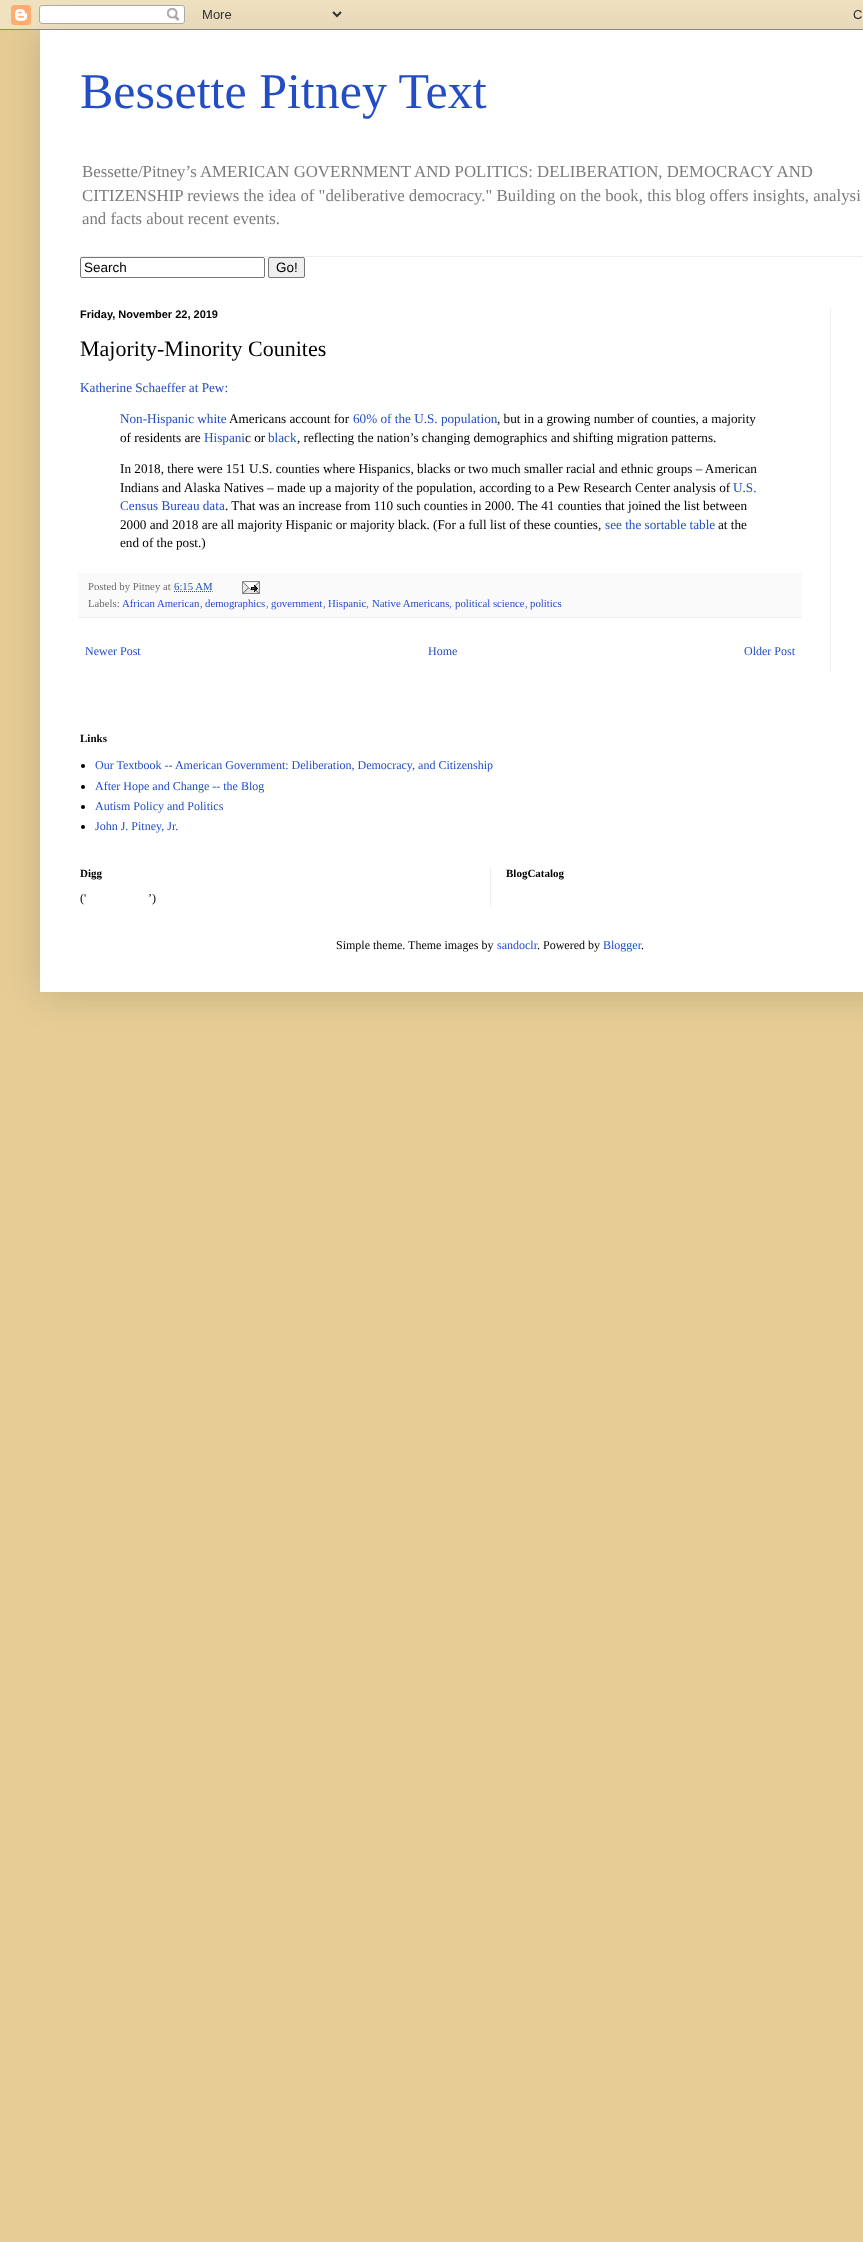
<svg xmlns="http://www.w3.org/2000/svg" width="863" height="2242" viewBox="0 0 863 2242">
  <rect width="100%" height="100%" fill="rgb(230,205,149)"/>
  <rect x="40" y="30" width="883" height="962" fill="rgba(0,0,0,0.15)" filter="blur(20px)"/>
  <image x="0" y="0" width="863" height="30" href="pic1.png"/>
  <rect x="40" y="30" width="823" height="962" fill="rgb(255,255,255)"/>
  <text x="80" y="108" font-family="Liberation Serif" font-size="50" fill="rgb(34,77,197)">Bessette Pitney Text</text>
  <g font-family="Liberation Serif" font-size="16.8" fill="rgb(124,124,124)">
    <text>
      <tspan x="82" y="177">Bessette/Pitney’s AMERICAN GOVERNMENT AND POLITICS: DELIBERATION, DEMOCRACY AND</tspan>
      <tspan x="82" y="201">CITIZENSHIP reviews the idea of "deliberative democracy." Building on the book, this blog offers insights, analysi</tspan>
      <tspan x="82" y="224">and facts about recent events.</tspan>
    </text>
  </g>
  <rect x="80" y="256" width="783" height="1" fill="rgb(239,239,239)"/>
  <rect x="80.5" y="257.5" width="184" height="20" rx="1.5" fill="none" stroke="rgb(118,118,118)"/>
  <text x="84" y="272" font-family="Liberation Sans" font-size="13.5" fill="rgb(0,0,0)">Search</text>
  <rect x="268.5" y="257.5" width="36" height="20" rx="1.5" fill="rgb(239,239,239)" stroke="rgb(118,118,118)"/>
  <text x="276" y="272" font-family="Liberation Sans" font-size="13.5" fill="rgb(0,0,0)">Go!</text>
  <text x="80" y="318" font-family="Liberation Sans" font-size="11" font-weight="bold" fill="rgb(0,0,0)">Friday, November 22, 2019</text>
  <text x="80" y="356" font-family="Liberation Serif" font-size="22" fill="rgb(0,0,0)">Majority-Minority Counites</text>
  <g font-family="Liberation Serif" font-size="13.2" fill="rgb(34,77,197)">
    <text x="80" y="392">Katherine Schaeffer at Pew:</text>
    <text x="120" y="423">Non-Hispanic white</text>
  </g>
  <text x="229" y="423" font-family="Liberation Serif" font-size="13.2" fill="rgb(0,0,0)">Americans account for</text>
  <text x="353" y="423" font-family="Liberation Serif" font-size="13.2" fill="rgb(34,77,197)">60% of the U.S. population</text>
  <g font-family="Liberation Serif" font-size="13.2" fill="rgb(0,0,0)">
    <text x="497" y="423">, but in a growing number of counties, a majority</text>
    <text x="120" y="442">of residents are</text>
  </g>
  <text x="204" y="442" font-family="Liberation Serif" font-size="13.2" fill="rgb(34,77,197)">Hispani</text>
  <text x="245" y="442" font-family="Liberation Serif" font-size="13.2" fill="rgb(0,0,0)">c or</text>
  <text x="268" y="442" font-family="Liberation Serif" font-size="13.2" fill="rgb(34,77,197)">black</text>
  <g font-family="Liberation Serif" font-size="13.2" fill="rgb(0,0,0)">
    <text x="297" y="442">, reflecting the nation’s changing demographics and shifting migration patterns.</text>
    <text>
      <tspan x="120" y="473">In 2018, there were 151 U.S. counties where Hispanics, blacks or two much smaller racial and ethnic groups – American</tspan>
      <tspan x="120" y="492">Indians and Alaska Natives – made up a majority of the population, according to a Pew Research Center analysis of</tspan>
    </text>
  </g>
  <g font-family="Liberation Serif" font-size="13.2" fill="rgb(34,77,197)">
    <text x="733" y="492">U.S.</text>
    <text x="120" y="510">Census Bureau data</text>
  </g>
  <g font-family="Liberation Serif" font-size="13.2" fill="rgb(0,0,0)">
    <text x="225" y="510">. That was an increase from 110 such counties in 2000. The 41 counties that joined the list between</text>
    <text x="120" y="529">2000 and 2018 are all majority Hispanic or majority black. (For a full list of these counties,</text>
  </g>
  <text x="605" y="529" font-family="Liberation Serif" font-size="13.2" fill="rgb(34,77,197)">see the sortable table</text>
  <g font-family="Liberation Serif" font-size="13.2" fill="rgb(0,0,0)">
    <text x="718" y="529">at the</text>
    <text x="120" y="547">end of the post.)</text>
  </g>
  <rect x="78" y="573" width="724" height="44" fill="rgb(250,250,250)"/>
  <rect x="78" y="617" width="724" height="1" fill="rgb(239,239,239)"/>
  <text x="88" y="590" font-family="Liberation Serif" font-size="10.75" fill="rgb(108,108,108)">Posted by Pitney at</text>
  <text x="174" y="590" font-family="Liberation Serif" font-size="10.75" fill="rgb(34,77,197)">6:15 AM</text>
  <path d="M174 591.5H212.5" fill="none" stroke="rgb(34,77,197)" stroke-dasharray="1 1"/>
  <image x="242" y="581" width="18" height="13" href="pic2.png"/>
  <text x="88" y="607" font-family="Liberation Serif" font-size="10.75" fill="rgb(108,108,108)">Labels:</text>
  <text x="122" y="607" font-family="Liberation Serif" font-size="10.75" fill="rgb(34,77,197)">African American</text>
  <text x="200" y="607" font-family="Liberation Serif" font-size="10.75" fill="rgb(108,108,108)">,</text>
  <text x="205" y="607" font-family="Liberation Serif" font-size="10.75" fill="rgb(34,77,197)">demographics</text>
  <text x="266" y="607" font-family="Liberation Serif" font-size="10.75" fill="rgb(108,108,108)">,</text>
  <text x="271" y="607" font-family="Liberation Serif" font-size="10.75" fill="rgb(34,77,197)">government</text>
  <text x="323" y="607" font-family="Liberation Serif" font-size="10.75" fill="rgb(108,108,108)">,</text>
  <text x="328" y="607" font-family="Liberation Serif" font-size="10.75" fill="rgb(34,77,197)">Hispanic</text>
  <text x="366" y="607" font-family="Liberation Serif" font-size="10.75" fill="rgb(108,108,108)">,</text>
  <text x="372" y="607" font-family="Liberation Serif" font-size="10.75" fill="rgb(34,77,197)">Native Americans</text>
  <text x="449" y="607" font-family="Liberation Serif" font-size="10.75" fill="rgb(108,108,108)">,</text>
  <text x="455" y="607" font-family="Liberation Serif" font-size="10.75" fill="rgb(34,77,197)">political science</text>
  <text x="525" y="607" font-family="Liberation Serif" font-size="10.75" fill="rgb(108,108,108)">,</text>
  <text x="530" y="607" font-family="Liberation Serif" font-size="10.75" fill="rgb(34,77,197)">politics</text>
  <g font-family="Liberation Serif" font-size="12" fill="rgb(34,77,197)">
    <text x="85" y="655">Newer Post</text>
    <text x="428" y="655">Home</text>
    <text x="744" y="655">Older Post</text>
  </g>
  <rect x="830" y="308" width="1" height="364" fill="rgb(239,239,239)"/>
  <text x="80" y="742" font-family="Liberation Serif" font-size="11" font-weight="bold" fill="rgb(0,0,0)">Links</text>
  <circle cx="83" cy="766" r="2" fill="rgb(0,0,0)"/>
  <text x="95" y="769" font-family="Liberation Serif" font-size="12" fill="rgb(34,77,197)">Our Textbook -- American Government: Deliberation, Democracy, and Citizenship</text>
  <circle cx="83" cy="787" r="2" fill="rgb(0,0,0)"/>
  <text x="95" y="790" font-family="Liberation Serif" font-size="12" fill="rgb(34,77,197)">After Hope and Change -- the Blog</text>
  <circle cx="83" cy="807" r="2" fill="rgb(0,0,0)"/>
  <text x="95" y="810" font-family="Liberation Serif" font-size="12" fill="rgb(34,77,197)">Autism Policy and Politics</text>
  <circle cx="83" cy="827" r="2" fill="rgb(0,0,0)"/>
  <text x="95" y="830" font-family="Liberation Serif" font-size="12" fill="rgb(34,77,197)">John J. Pitney, Jr.</text>
  <text x="80" y="877" font-family="Liberation Serif" font-size="11" font-weight="bold" fill="rgb(0,0,0)">Digg</text>
  <g font-family="Liberation Serif" font-size="12" fill="rgb(0,0,0)">
    <text x="80" y="902">('</text>
    <text x="148" y="902">’)</text>
  </g>
  <rect x="490" y="867" width="1" height="40" fill="rgb(239,239,239)"/>
  <text x="506" y="877" font-family="Liberation Serif" font-size="11" font-weight="bold" fill="rgb(0,0,0)">BlogCatalog</text>
  <text x="336" y="949" font-family="Liberation Serif" font-size="12" fill="rgb(0,0,0)">Simple theme. Theme images by</text>
  <text x="497" y="949" font-family="Liberation Serif" font-size="12" fill="rgb(34,77,197)">sandoclr</text>
  <text x="537" y="949" font-family="Liberation Serif" font-size="12" fill="rgb(0,0,0)">. Powered by</text>
  <text x="603" y="949" font-family="Liberation Serif" font-size="12" fill="rgb(34,77,197)">Blogger</text>
  <text x="641" y="949" font-family="Liberation Serif" font-size="12" fill="rgb(0,0,0)">.</text>
</svg>
